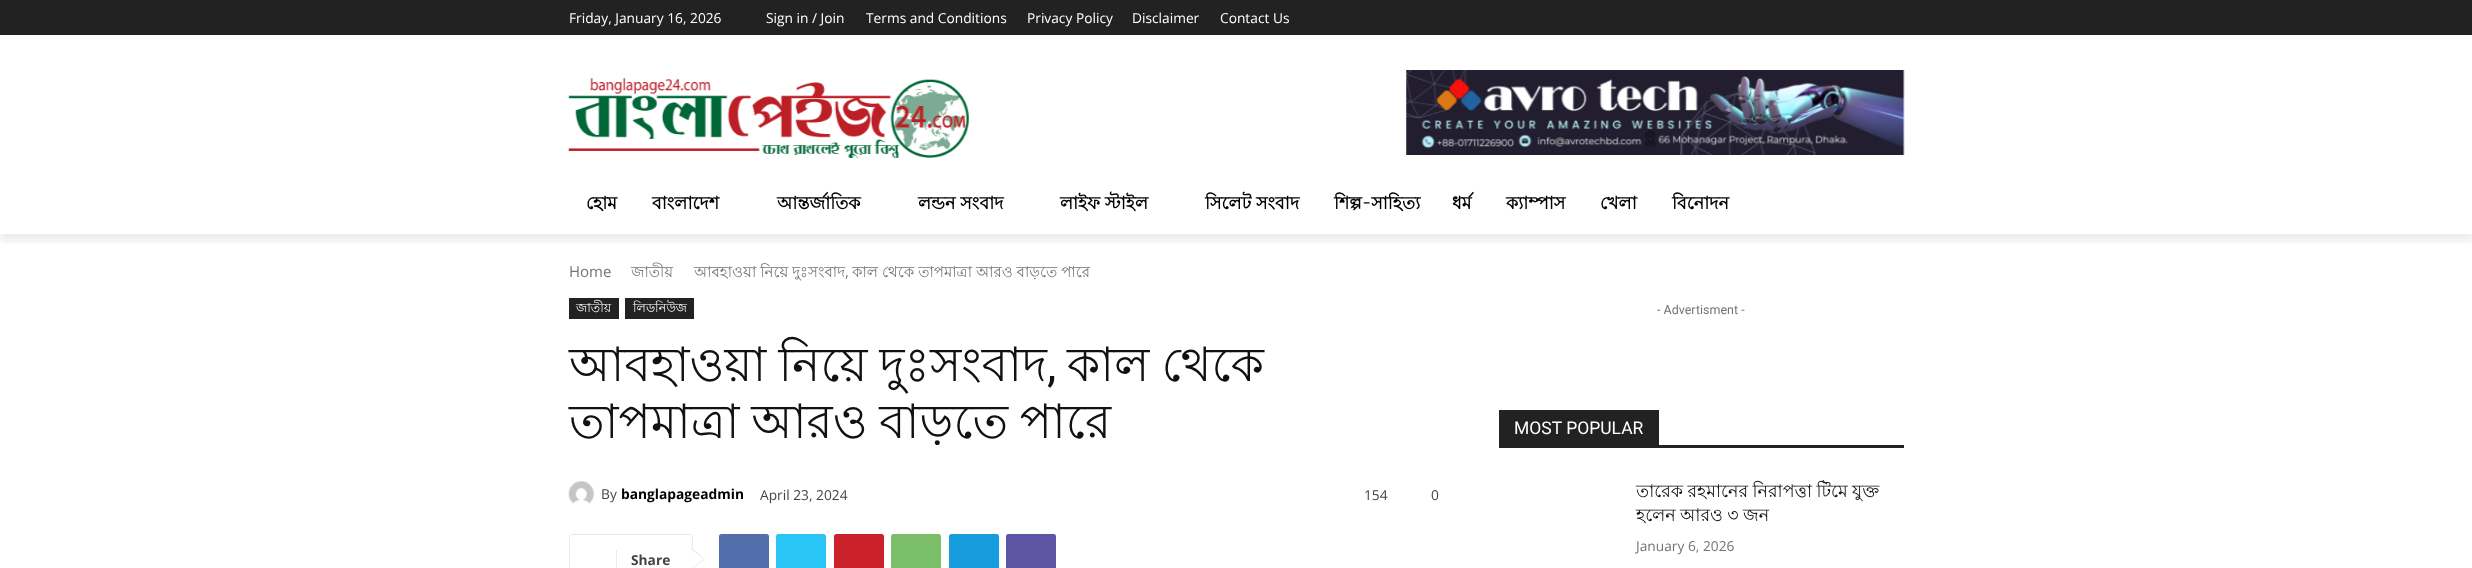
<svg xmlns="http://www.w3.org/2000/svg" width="2472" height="568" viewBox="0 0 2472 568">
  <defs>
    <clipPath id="clip1"><rect x="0" y="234" width="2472" height="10"/></clipPath>
  </defs>
  <rect width="100%" height="100%" fill="rgb(255,255,255)"/>
  <rect x="0" y="0" width="2472" height="35" fill="rgb(34,34,34)"/>
  <image x="568" y="78" width="401" height="81" href="pic1.png"/>
  <image x="1406" y="70" width="499" height="85" href="pic2.png"/>
  <g clip-path="url(#clip1)">
    <rect x="0" y="8" width="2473" height="233" fill="rgba(0,0,0,0.08)" filter="blur(5px)"/>
  </g>
  <g font-family="Open Sans" font-size="13.75" fill="rgb(255,255,255)">
    <text x="569" y="23">Friday, January 16, 2026</text>
    <text x="766" y="23">Sign in / Join</text>
    <text x="866" y="23">Terms and Conditions</text>
    <text x="1027" y="23">Privacy Policy</text>
    <text x="1132" y="23">Disclaimer</text>
    <text x="1220" y="23">Contact Us</text>
  </g>
  <g font-family="Lohit Bengali" font-size="17.5" font-weight="bold" fill="rgb(0,0,0)">
    <text x="586" y="209">হোম</text>
    <text x="652" y="209">বাংলাদেশ</text>
    <text x="777" y="209">আন্তর্জাতিক</text>
    <text x="918" y="209">লন্ডন সংবাদ</text>
    <text x="1060" y="209">লাইফ স্টাইল</text>
    <text x="1205" y="209">সিলেট সংবাদ</text>
    <text x="1334" y="209">শিল্প-সাহিত্য</text>
    <text x="1452" y="209">ধর্ম</text>
    <text x="1506" y="209">ক্যাম্পাস</text>
    <text x="1600" y="209">খেলা</text>
    <text x="1672" y="209">বিনোদন</text>
  </g>
  <text x="569" y="277" font-family="Open Sans" font-size="15" fill="rgb(116,116,116)">Home</text>
  <g font-family="Lohit Bengali" font-size="15" fill="rgb(116,116,116)">
    <text x="631" y="277">জাতীয়</text>
    <text x="694" y="277" word-spacing="-0.25">আবহাওয়া নিয়ে দুঃসংবাদ</text>
  </g>
  <text x="845" y="277" font-family="Open Sans" font-size="15" fill="rgb(116,116,116)">,</text>
  <text x="852" y="277" word-spacing="-0.25" font-family="Lohit Bengali" font-size="15" fill="rgb(116,116,116)">কাল থেকে তাপমাত্রা আরও বাড়তে পারে</text>
  <rect x="569" y="298" width="50" height="21" fill="rgb(34,34,34)"/>
  <text x="576" y="312" font-family="Lohit Bengali" font-size="12.5" fill="rgb(255,255,255)">জাতীয়</text>
  <rect x="625" y="298" width="69" height="21" fill="rgb(34,34,34)"/>
  <text x="633" y="312" font-family="Lohit Bengali" font-size="12.5" fill="rgb(255,255,255)">লিডনিউজ</text>
  <text x="569" y="381" word-spacing="-1" font-family="Lohit Bengali" font-size="47.5" fill="rgb(17,17,17)">আবহাওয়া নিয়ে দুঃসংবাদ</text>
  <text x="1047" y="381" font-family="Roboto" font-size="47.5" fill="rgb(17,17,17)">,</text>
  <g font-family="Lohit Bengali" font-size="47.5" fill="rgb(17,17,17)">
    <text x="1067" y="381" word-spacing="-1">কাল থেকে</text>
    <text x="569" y="438" word-spacing="-1.5">তাপমাত্রা আরও বাড়তে পারে</text>
  </g>
  <image x="568" y="481" width="26" height="23" href="pic3.png"/>
  <text x="601" y="499" font-family="Open Sans" font-size="13.75" fill="rgb(68,68,68)">By</text>
  <text x="621" y="499" font-family="Open Sans" font-size="13.75" font-weight="bold" fill="rgb(0,0,0)">banglapageadmin</text>
  <g font-family="Open Sans" font-size="13.75" fill="rgb(68,68,68)">
    <text x="760" y="500">April 23, 2024</text>
    <text x="1364" y="500">154</text>
    <text x="1431" y="500">0</text>
  </g>
  <rect x="569.5" y="534.5" width="123" height="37" rx="2" fill="none" stroke="rgb(233,233,233)"/>
  <path d="M691 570V547.5L705 559Z" fill="rgb(233,233,233)"/>
  <rect x="616" y="550" width="1" height="18" fill="rgb(235,235,235)"/>
  <text x="631" y="565" font-family="Open Sans" font-size="13.75" font-weight="bold" fill="rgb(68,68,68)">Share</text>
  <path d="M691 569V549L704 559Z" fill="rgb(255,255,255)"/>
  <rect x="719" y="534" width="50" height="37" rx="2.5" fill="rgb(81,110,171)"/>
  <rect x="776" y="534" width="50" height="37" rx="2.5" fill="rgb(41,197,246)"/>
  <rect x="834" y="534" width="50" height="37" rx="2.5" fill="rgb(202,33,42)"/>
  <rect x="891" y="534" width="50" height="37" rx="2.5" fill="rgb(123,191,106)"/>
  <rect x="949" y="534" width="50" height="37" rx="2.5" fill="rgb(23,156,222)"/>
  <rect x="1006" y="534" width="50" height="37" rx="2.5" fill="rgb(93,84,164)"/>
  <text x="1657" y="314" font-family="Roboto" font-size="12.5" fill="rgb(116,116,116)">- Advertisment -</text>
  <rect x="1499" y="445" width="405" height="3" fill="rgb(34,34,34)"/>
  <rect x="1499" y="410" width="160" height="35" fill="rgb(34,34,34)"/>
  <text x="1514" y="434" font-family="Roboto" font-size="17.5" fill="rgb(255,255,255)">MOST POPULAR</text>
  <g font-family="Lohit Bengali" font-size="17.5" fill="rgb(17,17,17)">
    <text>
      <tspan x="1636" y="497" word-spacing="-0.5">তারেক রহমানের নিরাপত্তা টিমে যুক্ত</tspan>
      <tspan x="1636" y="521" word-spacing="-0.5">হলেন আরও ৩ জন</tspan>
    </text>
  </g>
  <text x="1636" y="551" font-family="Open Sans" font-size="13.75" fill="rgb(116,116,116)">January 6, 2026</text>
</svg>
